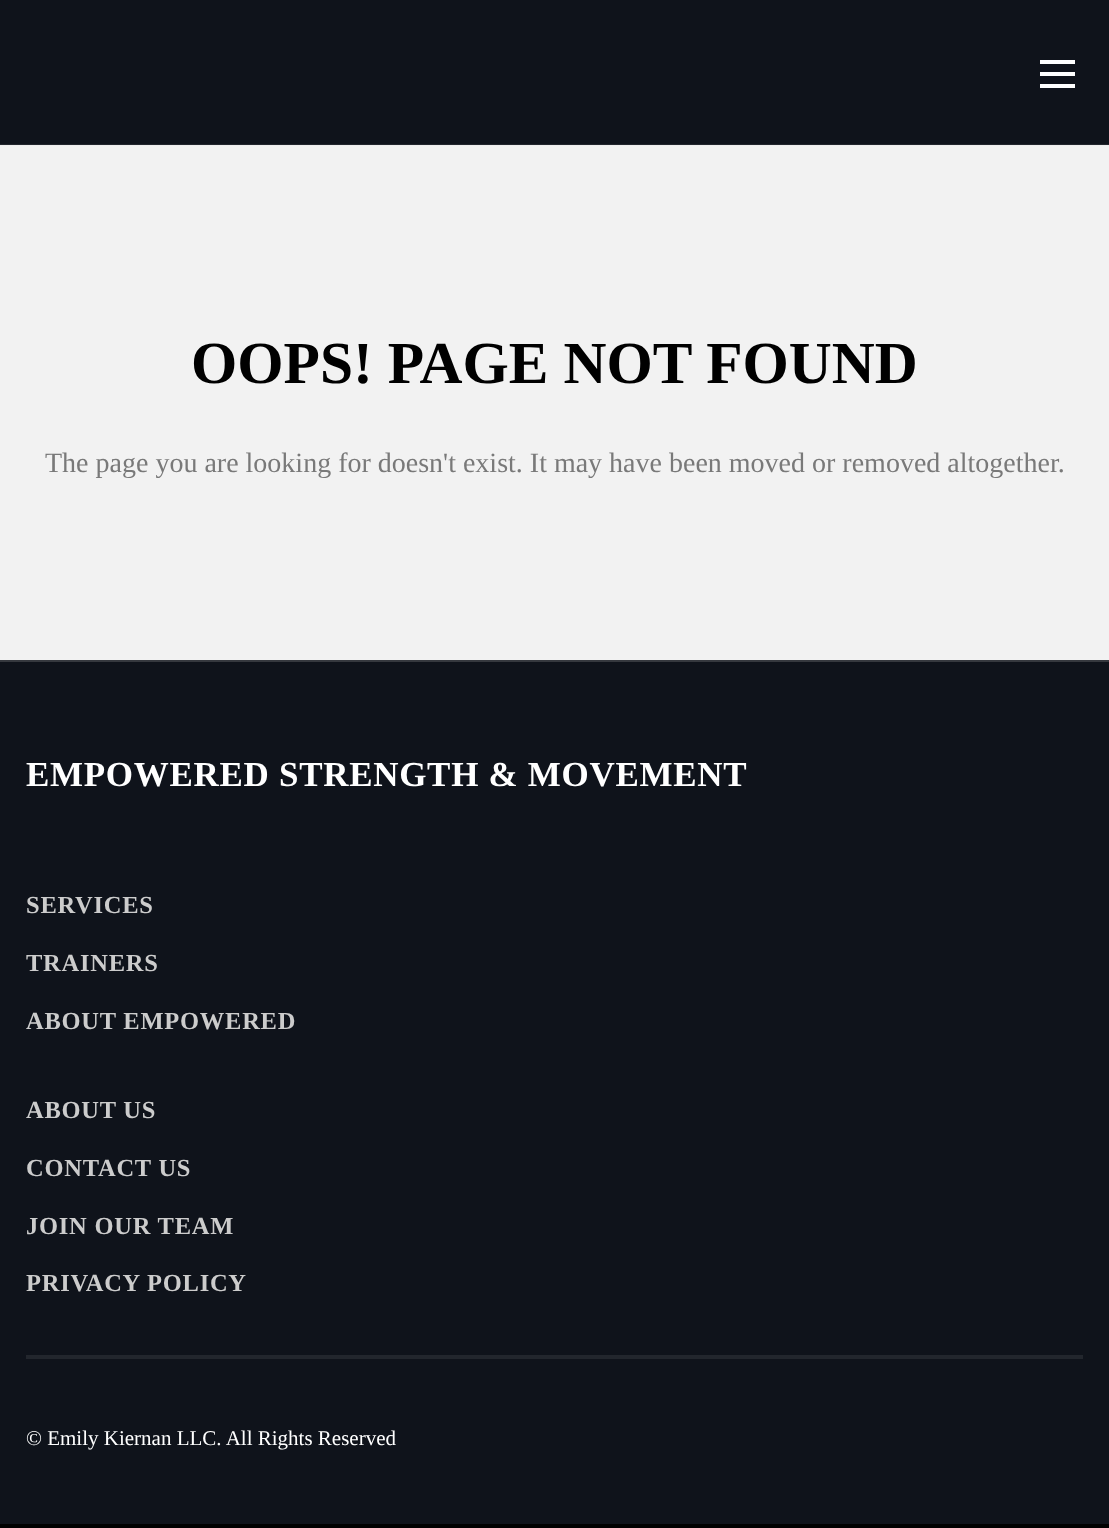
<svg xmlns="http://www.w3.org/2000/svg" width="1109" height="1528" viewBox="0 0 1109 1528">
  <rect width="100%" height="100%" fill="rgb(0,0,0)"/>
  <rect x="0" y="146" width="1109" height="514" fill="rgb(242,242,242)"/>
  <rect x="0" y="145" width="1109" height="1" fill="rgb(238,238,238)"/>
  <rect x="0" y="0" width="1109" height="144" fill="rgb(15,19,27)"/>
  <rect x="0" y="144" width="1109" height="1" fill="rgb(34,38,45)"/>
  <rect x="1040" y="84" width="35" height="4" fill="rgb(255,255,255)"/>
  <rect x="1040" y="60" width="35" height="4" fill="rgb(255,255,255)"/>
  <rect x="1040" y="72" width="35" height="4" fill="rgb(255,255,255)"/>
  <text x="191" y="383" font-family="Liberation Serif" font-size="59.5" font-weight="bold" fill="rgb(0,0,0)">OOPS! PAGE NOT FOUND</text>
  <text x="45" y="472" font-family="Liberation Serif" font-size="28" fill="rgb(121,121,121)">The page you are looking for doesn't exist. It may have been moved or removed altogether.</text>
  <rect x="0" y="662" width="1109" height="862" fill="rgb(15,19,27)"/>
  <rect x="0" y="660" width="1109" height="2" fill="rgb(53,56,62)"/>
  <text x="26" y="786" font-family="Liberation Serif" font-size="35" font-weight="bold" letter-spacing="0.7" fill="rgb(255,255,255)">EMPOWERED STRENGTH &amp; MOVEMENT</text>
  <g font-family="Liberation Serif" font-size="24.5" font-weight="bold" letter-spacing="0.75" fill="rgb(204,204,204)">
    <text x="26" y="913">SERVICES</text>
    <text x="26" y="971">TRAINERS</text>
    <text x="26" y="1029">ABOUT EMPOWERED</text>
    <text x="26" y="1118">ABOUT US</text>
    <text x="26" y="1176">CONTACT US</text>
    <text x="26" y="1234">JOIN OUR TEAM</text>
    <text x="26" y="1291">PRIVACY POLICY</text>
  </g>
  <rect x="26" y="1355" width="1057" height="4" fill="rgb(34,38,45)"/>
  <text x="26" y="1445" font-family="Liberation Serif" font-size="21" fill="rgb(255,255,255)">© Emily Kiernan LLC. All Rights Reserved</text>
</svg>
